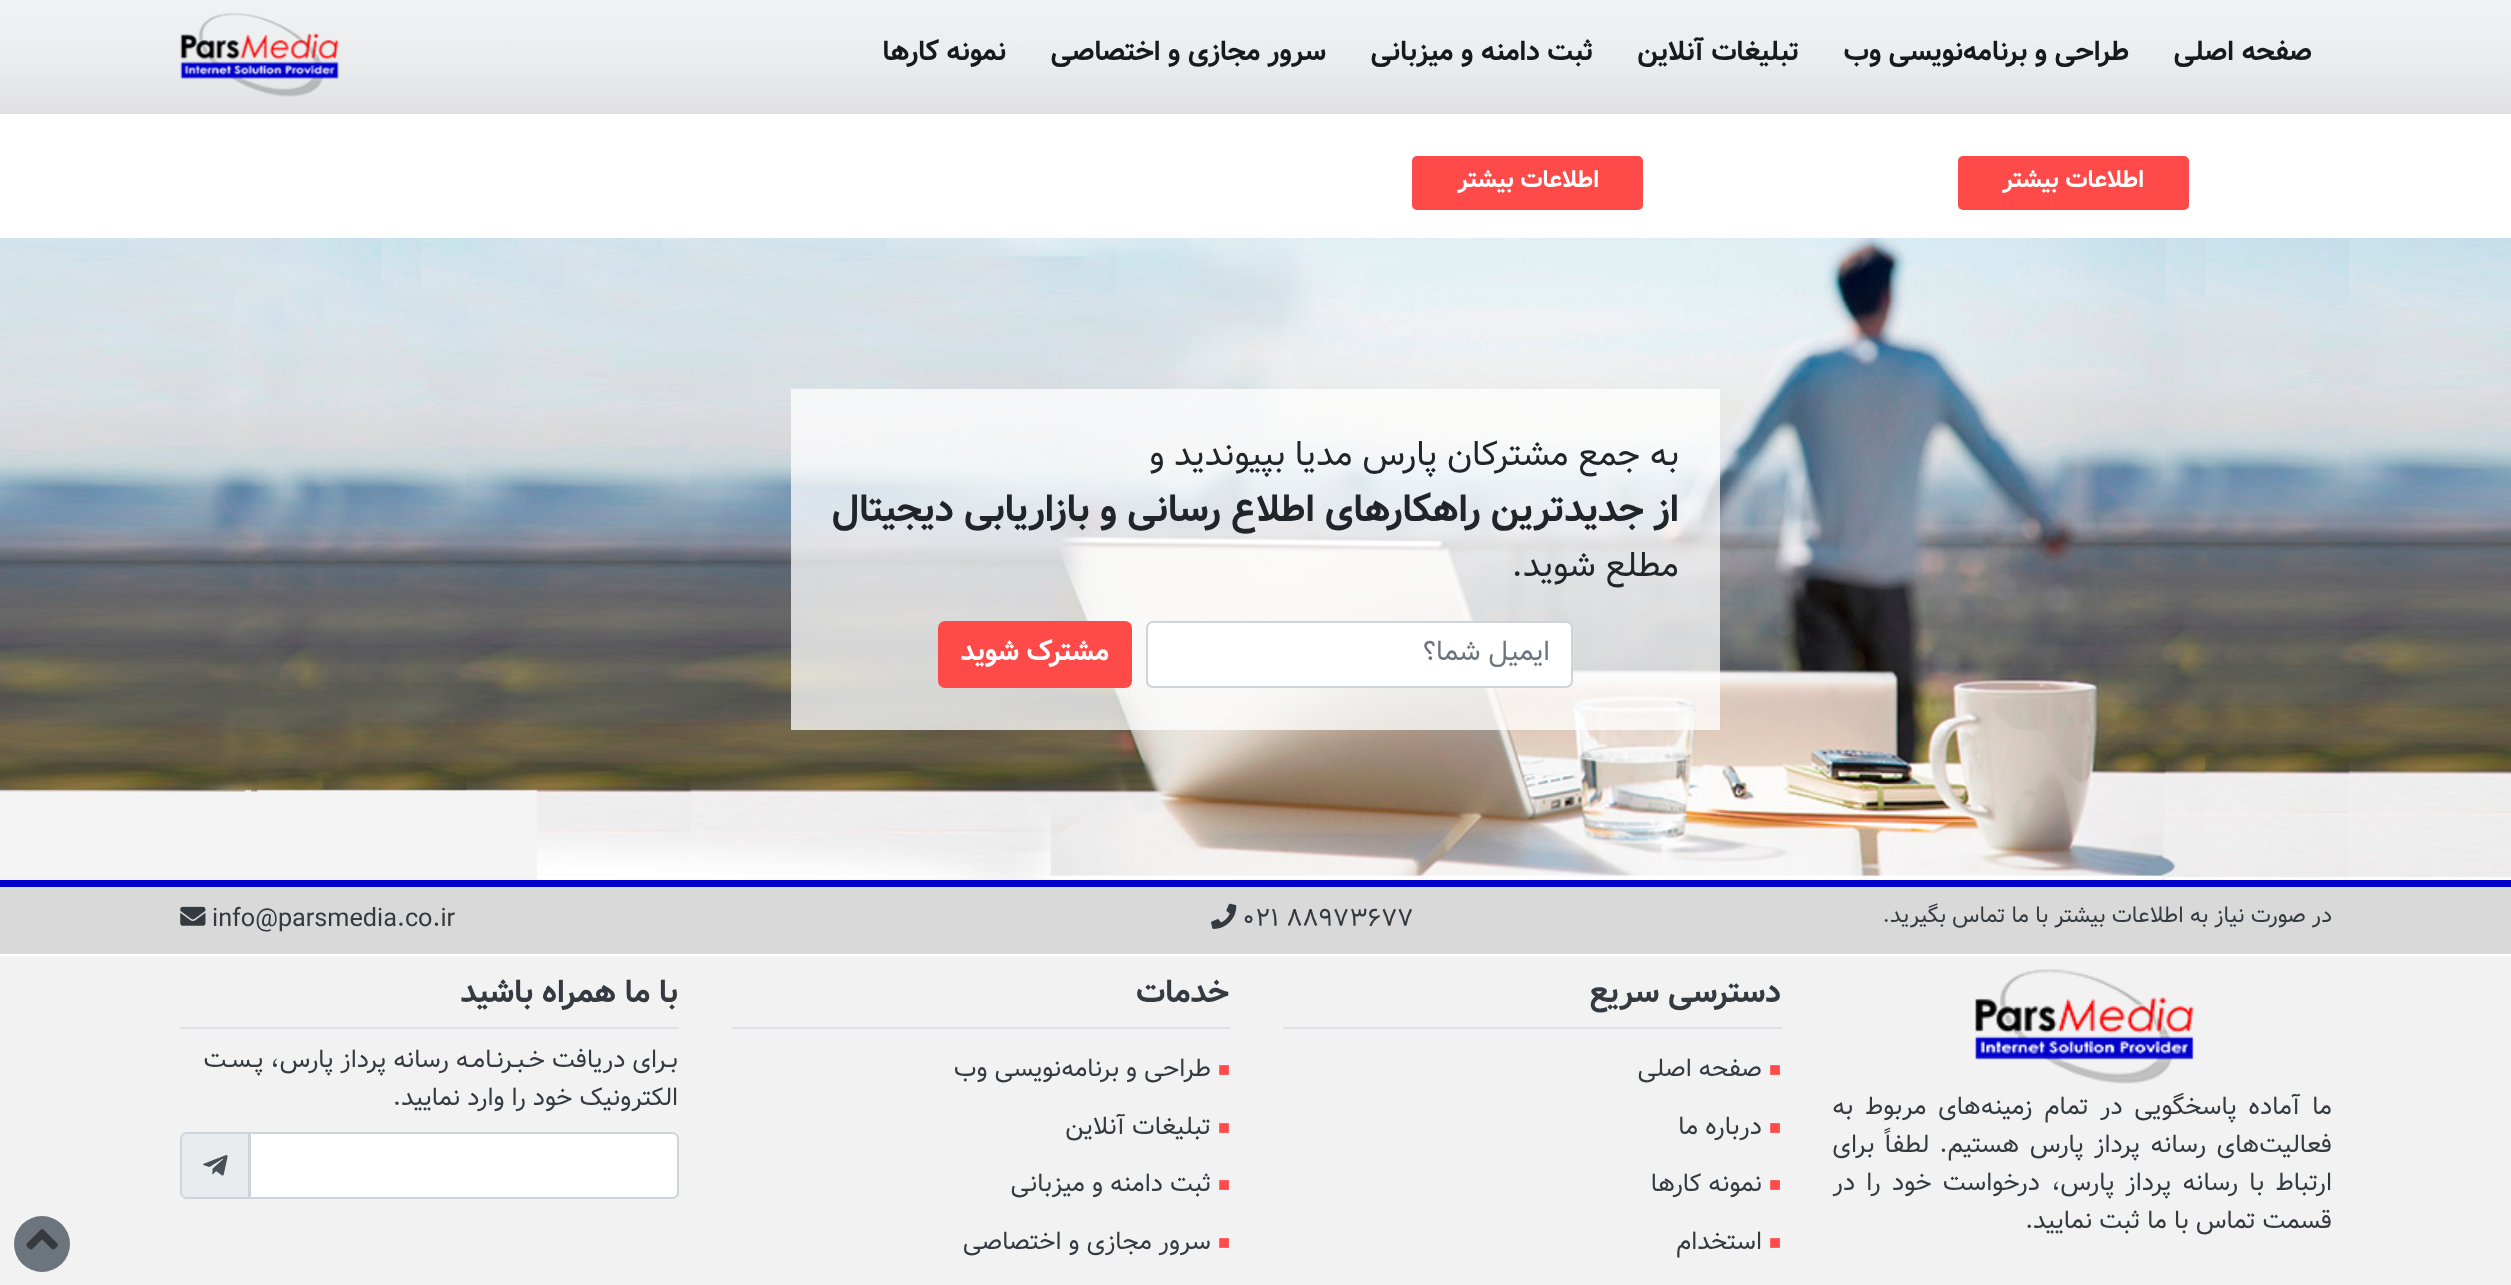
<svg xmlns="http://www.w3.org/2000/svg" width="2511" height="1285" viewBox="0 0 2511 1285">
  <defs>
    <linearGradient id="g1" gradientUnits="userSpaceOnUse" x1="1256" y1="0" x2="1256" y2="114"><stop offset="0" stop-color="rgb(241,242,244)"/><stop offset="0.54" stop-color="rgb(235,236,238)"/><stop offset="1" stop-color="rgb(224,224,226)"/></linearGradient>
  </defs>
  <rect width="100%" height="100%" fill="rgb(255,255,255)"/>
  <rect x="0" y="0" width="2511" height="114" fill="url(#g1)"/>
  <g font-family="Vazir" font-size="28" font-weight="bold" direction="rtl" fill="rgb(25,25,25)">
    <text x="2312" y="60">صفحه اصلی</text>
    <text x="2129" y="60">طراحی و برنامه‌نویسی وب</text>
    <text x="1799" y="60">تبلیغات آنلاین</text>
    <text x="1593" y="60">ثبت دامنه و میزبانی</text>
    <text x="1326" y="60">سرور مجازی و اختصاصی</text>
    <text x="1006" y="60">نمونه کارها</text>
  </g>
  <image x="180" y="13" width="159" height="84" href="pic1.png"/>
  <rect x="1958" y="156" width="231" height="54" rx="5" fill="rgb(255,74,74)"/>
  <text x="2144" y="187" font-family="Vazir" font-size="24.5" font-weight="bold" direction="rtl" fill="rgb(255,255,255)">اطلاعات بیشتر</text>
  <rect x="1412" y="156" width="231" height="54" rx="5" fill="rgb(255,74,74)"/>
  <text x="1599" y="187" font-family="Vazir" font-size="24.5" font-weight="bold" direction="rtl" fill="rgb(255,255,255)">اطلاعات بیشتر</text>
  <image x="0" y="238" width="2511" height="642" href="pic2.png"/>
  <rect x="791" y="389" width="929" height="341" fill="rgba(255,255,255,0.75)"/>
  <text x="1679" y="465" font-family="Vazir" font-size="35" direction="rtl" fill="rgb(33,37,41)">به جمع مشترکان پارس مدیا بپیوندید و</text>
  <text x="1679" y="521" font-family="Vazir" font-size="38.5" font-weight="bold" direction="rtl" fill="rgb(33,37,41)">از جدیدترین راهکارهای اطلاع رسانی و بازاریابی دیجیتال</text>
  <text x="1679" y="576" font-family="Vazir" font-size="35" direction="rtl" fill="rgb(33,37,41)">مطلع شوید.</text>
  <rect x="1147" y="622" width="425" height="65" rx="6" fill="rgb(255,255,255)" stroke="rgb(206,212,218)" stroke-width="2"/>
  <text x="1550" y="660" font-family="Vazir" font-size="28" direction="rtl" fill="rgb(108,117,125)">ایمیل شما؟</text>
  <rect x="938" y="621" width="194" height="67" rx="7" fill="rgb(255,74,74)"/>
  <text x="1109" y="660" font-family="Vazir" font-size="28" font-weight="bold" direction="rtl" fill="rgb(255,255,255)">مشترک شوید</text>
  <rect x="0" y="880" width="2511" height="7" fill="rgb(0,0,200)"/>
  <rect x="0" y="887" width="2511" height="67" fill="rgb(217,217,217)"/>
  <text x="2332" y="922" font-family="Vazir" font-size="22.4" direction="rtl" fill="rgb(52,58,64)">در صورت نیاز به اطلاعات بیشتر با ما تماس بگیرید.</text>
  <text x="1242" y="926" font-family="Vazir" font-size="25.25" fill="rgb(52,58,64)">۰۲۱ ۸۸۹۷۳۶۷۷</text>
  <image x="1211" y="903" width="26" height="26" href="pic3.png"/>
  <text x="212" y="926" font-family="Vazir" font-size="25.25" fill="rgb(52,58,64)">info@parsmedia.co.ir</text>
  <image x="180" y="906" width="26" height="20" href="pic4.png"/>
  <rect x="0" y="956" width="2511" height="329" fill="rgb(242,242,242)"/>
  <image x="1975" y="969" width="219" height="115" href="pic5.png"/>
  <g font-family="Vazir" font-size="25.25" direction="rtl" fill="rgb(52,58,64)">
    <text>
      <tspan x="2332" y="1114" word-spacing="4.75">ما آماده پاسخگویی در تمام زمینه‌های مربوط به</tspan>
      <tspan x="2332" y="1152" word-spacing="3.5">فعالیت‌های رسانه پرداز پارس هستیم. لطفاً برای</tspan>
      <tspan x="2332" y="1190" word-spacing="4.25">ارتباط با رسانه پرداز پارس، درخواست خود را در</tspan>
      <tspan x="2332" y="1228">قسمت تماس با ما ثبت نمایید.</tspan>
    </text>
  </g>
  <rect x="1283" y="1027" width="499" height="2" fill="rgb(222,226,230)"/>
  <text x="1781" y="1002" font-family="Vazir" font-size="32.25" font-weight="bold" direction="rtl" fill="rgb(52,58,64)">دسترسی سریع</text>
  <text x="1769" y="1076" font-family="Liberation Serif" font-size="20" fill="rgb(255,74,74)">■</text>
  <text x="1762" y="1076" font-family="Vazir" font-size="25.25" direction="rtl" fill="rgb(52,58,64)">صفحه اصلی</text>
  <text x="1769" y="1134" font-family="Liberation Serif" font-size="20" fill="rgb(255,74,74)">■</text>
  <text x="1762" y="1134" font-family="Vazir" font-size="25.25" direction="rtl" fill="rgb(52,58,64)">درباره ما</text>
  <text x="1769" y="1191" font-family="Liberation Serif" font-size="20" fill="rgb(255,74,74)">■</text>
  <text x="1762" y="1191" font-family="Vazir" font-size="25.25" direction="rtl" fill="rgb(52,58,64)">نمونه کارها</text>
  <text x="1769" y="1249" font-family="Liberation Serif" font-size="20" fill="rgb(255,74,74)">■</text>
  <text x="1762" y="1249" font-family="Vazir" font-size="25.25" direction="rtl" fill="rgb(52,58,64)">استخدام</text>
  <rect x="732" y="1027" width="498" height="2" fill="rgb(222,226,230)"/>
  <text x="1229" y="1002" font-family="Vazir" font-size="32.25" font-weight="bold" direction="rtl" fill="rgb(52,58,64)">خدمات</text>
  <text x="1218" y="1076" font-family="Liberation Serif" font-size="20" fill="rgb(255,74,74)">■</text>
  <text x="1211" y="1076" font-family="Vazir" font-size="25.25" direction="rtl" fill="rgb(52,58,64)">طراحی و برنامه‌نویسی وب</text>
  <text x="1218" y="1134" font-family="Liberation Serif" font-size="20" fill="rgb(255,74,74)">■</text>
  <text x="1211" y="1134" font-family="Vazir" font-size="25.25" direction="rtl" fill="rgb(52,58,64)">تبلیغات آنلاین</text>
  <text x="1218" y="1191" font-family="Liberation Serif" font-size="20" fill="rgb(255,74,74)">■</text>
  <text x="1211" y="1191" font-family="Vazir" font-size="25.25" direction="rtl" fill="rgb(52,58,64)">ثبت دامنه و میزبانی</text>
  <text x="1218" y="1249" font-family="Liberation Serif" font-size="20" fill="rgb(255,74,74)">■</text>
  <text x="1211" y="1249" font-family="Vazir" font-size="25.25" direction="rtl" fill="rgb(52,58,64)">سرور مجازی و اختصاصی</text>
  <rect x="180" y="1027" width="499" height="2" fill="rgb(222,226,230)"/>
  <text x="678" y="1002" font-family="Vazir" font-size="32.25" font-weight="bold" direction="rtl" fill="rgb(52,58,64)">با ما همراه باشید</text>
  <g font-family="Vazir" font-size="25.25" direction="rtl" fill="rgb(52,58,64)">
    <text>
      <tspan x="678" y="1067">بـرای دریافت خـبـرنـامـه رسانه پرداز پارس، پـسـت</tspan>
      <tspan x="678" y="1105">الکترونیک خود را وارد نمایید.</tspan>
    </text>
  </g>
  <path d="M187 1133H249V1198H187C183.5 1198 181 1195.5 181 1192V1139C181 1135.5 183.5 1133 187 1133Z" fill="rgb(233,236,239)" stroke="rgb(206,212,218)" stroke-width="2"/>
  <path d="M250 1133H672C675.5 1133 678 1135.5 678 1139V1192C678 1195.5 675.5 1198 672 1198H250Z" fill="rgb(255,255,255)" stroke="rgb(206,212,218)" stroke-width="2"/>
  <image x="203" y="1155" width="25" height="21" href="pic6.png"/>
  <circle cx="42" cy="1244" r="28" fill="rgb(108,117,125)"/>
  <image x="26" y="1229" width="32" height="21" href="pic7.png"/>
</svg>
